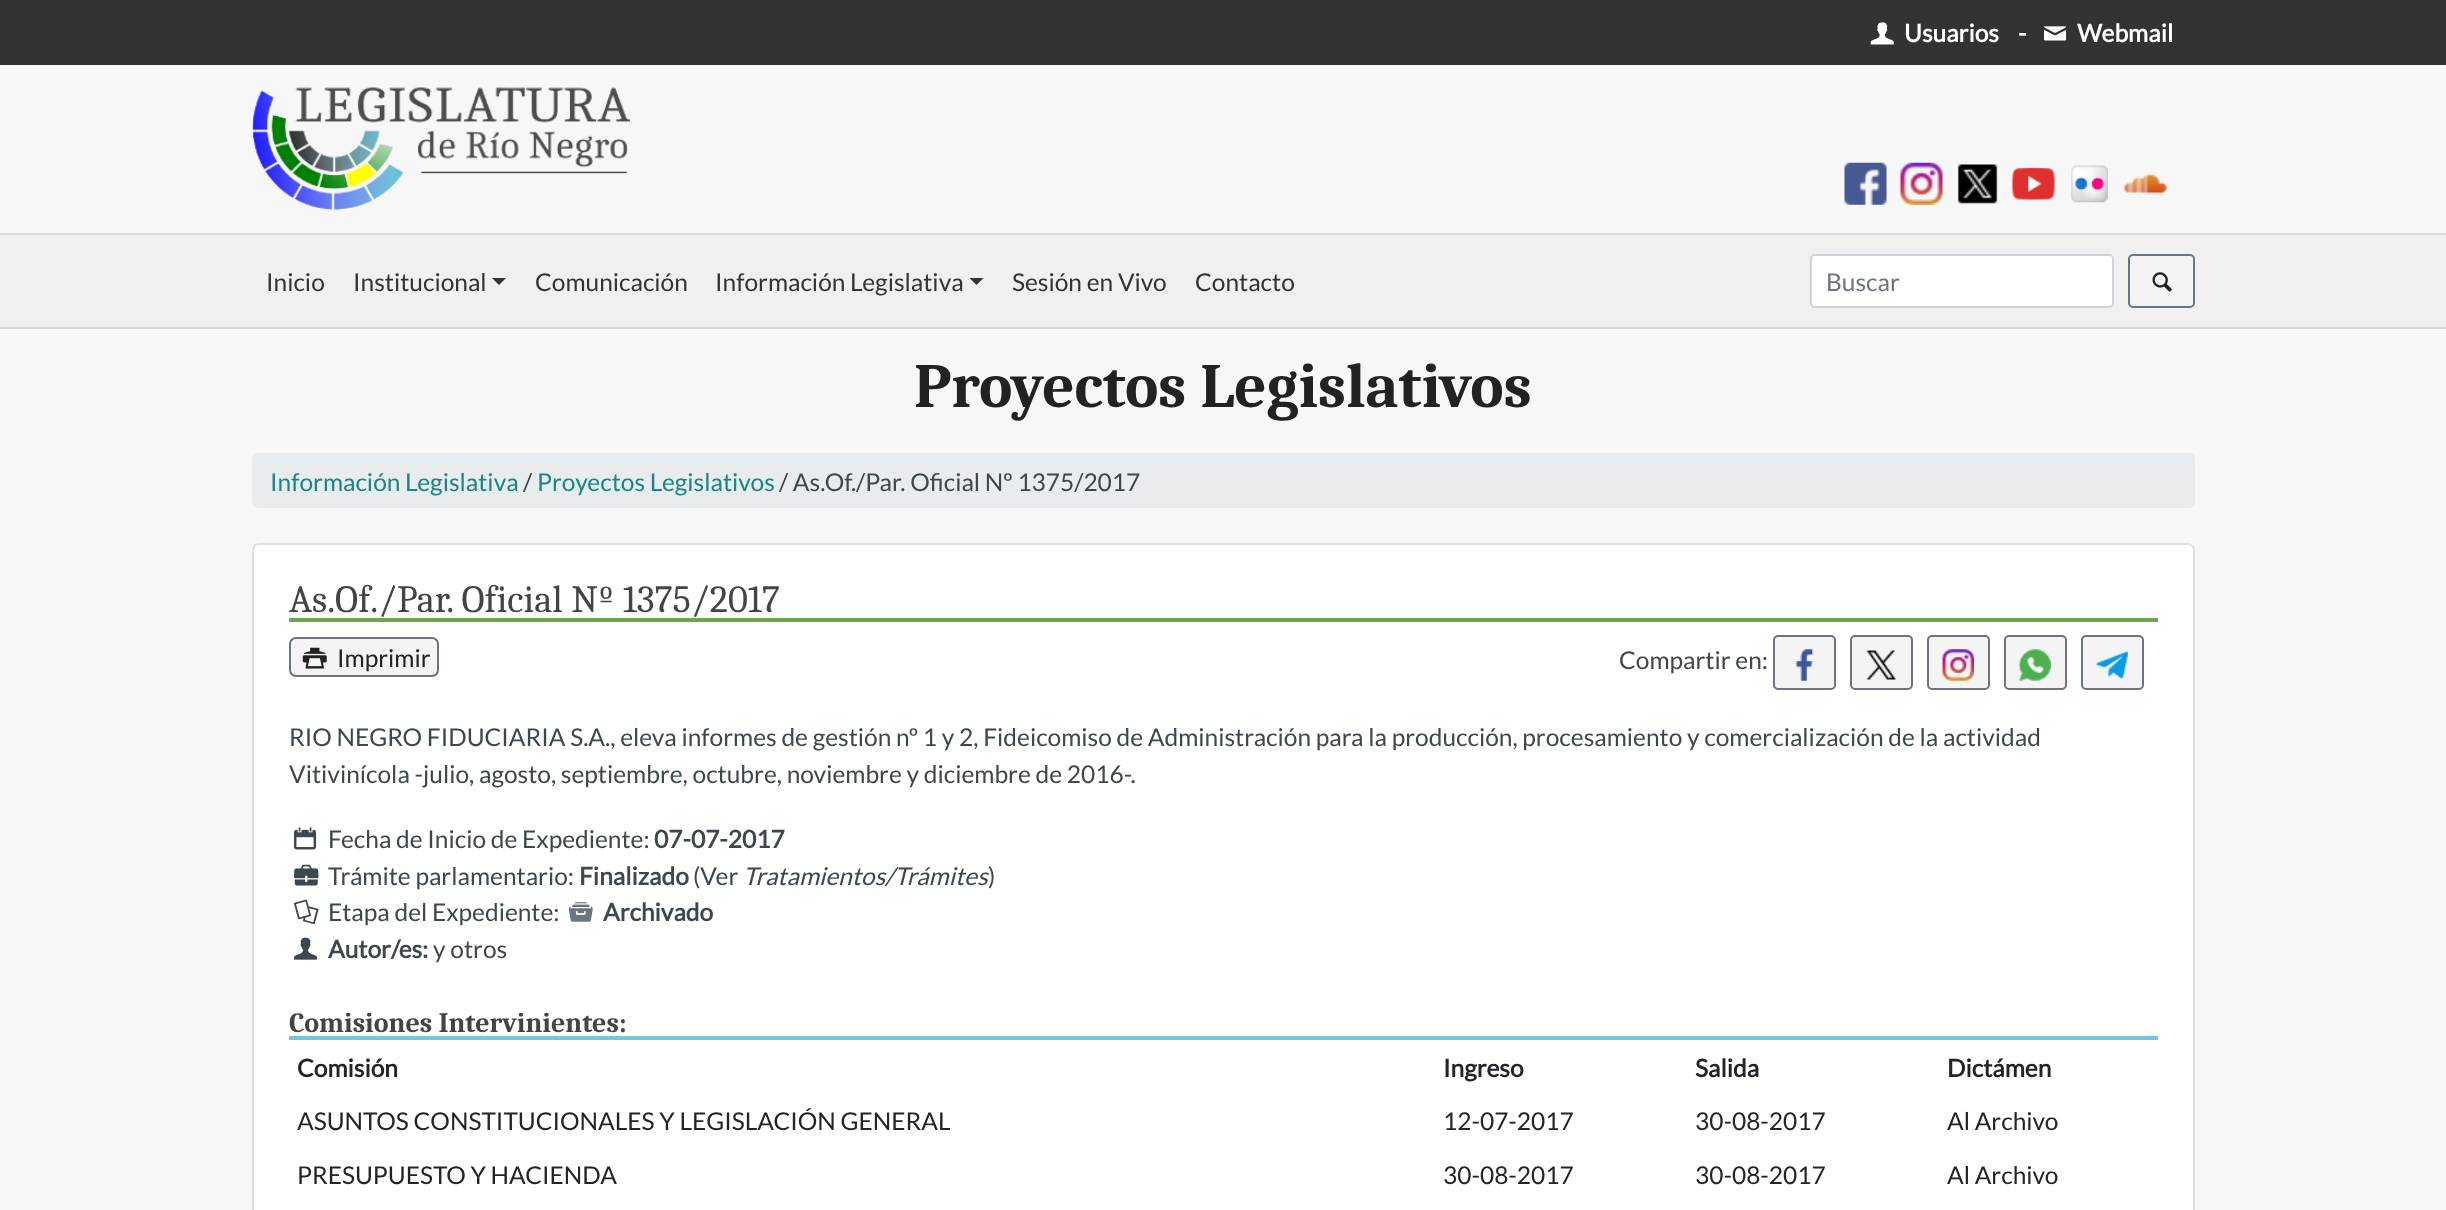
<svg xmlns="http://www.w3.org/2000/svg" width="2446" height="1210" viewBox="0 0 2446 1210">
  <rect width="100%" height="100%" fill="rgb(247,247,247)"/>
  <rect x="0" y="0" width="2446" height="65" fill="rgb(51,51,51)"/>
  <image x="1870" y="22" width="24" height="23" href="pic1.png"/>
  <g font-family="Lato" font-size="24.5" font-weight="bold" fill="rgb(255,255,255)">
    <text x="1904" y="42">Usuarios</text>
    <text x="2018" y="42">-</text>
  </g>
  <image x="2044" y="26" width="23" height="15" href="pic2.png"/>
  <text x="2077" y="42" font-family="Lato" font-size="24.5" font-weight="bold" fill="rgb(255,255,255)">Webmail</text>
  <image x="252" y="87" width="378" height="123" href="pic3.png"/>
  <image x="1844" y="162" width="43" height="43" href="pic4.png"/>
  <image x="1900" y="162" width="43" height="43" href="pic5.png"/>
  <image x="1957" y="164" width="41" height="40" href="pic6.png"/>
  <image x="2012" y="167" width="43" height="33" href="pic7.png"/>
  <image x="2071" y="165" width="37" height="38" href="pic8.png"/>
  <image x="2124" y="173" width="43" height="22" href="pic9.png"/>
  <rect x="0" y="235" width="2446" height="92" fill="rgb(240,240,240)"/>
  <rect x="0" y="233" width="2446" height="2" fill="rgb(217,217,217)"/>
  <rect x="0" y="327" width="2446" height="2" fill="rgb(217,217,217)"/>
  <g font-family="Lato" font-size="24.5" fill="rgb(51,51,51)">
    <text x="266" y="291">Inicio</text>
    <text x="353" y="291">Institucional</text>
  </g>
  <path d="M492 278H506L499 285Z" fill="rgb(51,51,51)"/>
  <g font-family="Lato" font-size="24.5" fill="rgb(51,51,51)">
    <text x="535" y="291">Comunicación</text>
    <text x="715" y="291">Información Legislativa</text>
  </g>
  <path d="M969.5 278H983.5L976.5 285Z" fill="rgb(51,51,51)"/>
  <g font-family="Lato" font-size="24.5" fill="rgb(51,51,51)">
    <text x="1012" y="291">Sesión en Vivo</text>
    <text x="1195" y="291">Contacto</text>
  </g>
  <rect x="1811" y="255" width="302" height="52" rx="4" fill="rgb(255,255,255)" stroke="rgb(206,212,218)" stroke-width="2"/>
  <text x="1826" y="291" font-family="Lato" font-size="24.5" fill="rgb(108,117,125)">Buscar</text>
  <rect x="2129" y="255" width="65" height="52" rx="4" fill="rgb(244,244,244)" stroke="rgb(108,117,125)" stroke-width="2"/>
  <image x="2152" y="272" width="20" height="20" href="pic10.png"/>
  <text x="914" y="407" font-family="Caladea" font-size="63" font-weight="bold" fill="rgb(34,34,34)">Proyectos Legislativos</text>
  <rect x="252" y="453" width="1943" height="55" rx="5" fill="rgb(233,236,239)"/>
  <text x="270" y="491" font-family="Lato" font-size="24.5" fill="rgb(23,135,128)">Información Legislativa</text>
  <text x="523" y="491" font-family="Lato" font-size="24.5" fill="rgb(60,72,78)">/</text>
  <text x="537" y="491" font-family="Lato" font-size="24.5" fill="rgb(23,135,128)">Proyectos Legislativos</text>
  <text x="779" y="491" font-family="Lato" font-size="24.5" fill="rgb(60,72,78)">/ As.Of./Par. Oficial Nº 1375/2017</text>
  <rect x="252" y="543" width="1943" height="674" rx="7" fill="rgb(255,255,255)"/>
  <rect x="253" y="544" width="1941" height="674" rx="6" fill="none" stroke="rgba(0,0,0,0.12)" stroke-width="2"/>
  <rect x="289" y="618" width="1869" height="4" fill="rgb(109,165,84)"/>
  <text x="289" y="612" font-family="Caladea" font-size="38.5" fill="rgb(68,68,68)">As.Of./Par. Oficial Nº 1375/2017</text>
  <rect x="290" y="638" width="148" height="38" rx="6" fill="rgb(244,244,244)" stroke="rgb(108,117,125)" stroke-width="2"/>
  <image x="302" y="647" width="25" height="22" href="pic11.png"/>
  <text x="337" y="667" font-family="Lato" font-size="24.5" fill="rgb(34,34,34)">Imprimir</text>
  <text x="1619" y="669" font-family="Lato" font-size="24.5" fill="rgb(60,72,78)">Compartir en:</text>
  <rect x="1774" y="636" width="61" height="53" rx="4" fill="rgb(244,244,244)" stroke="rgb(108,117,125)" stroke-width="2"/>
  <image x="1796" y="649" width="18" height="32" href="pic12.png"/>
  <rect x="1851" y="636" width="61" height="53" rx="4" fill="rgb(244,244,244)" stroke="rgb(108,117,125)" stroke-width="2"/>
  <image x="1866" y="650" width="30" height="30" href="pic13.png"/>
  <rect x="1928" y="636" width="61" height="53" rx="4" fill="rgb(244,244,244)" stroke="rgb(108,117,125)" stroke-width="2"/>
  <image x="1942" y="649" width="32" height="32" href="pic14.png"/>
  <rect x="2005" y="636" width="61" height="53" rx="4" fill="rgb(244,244,244)" stroke="rgb(108,117,125)" stroke-width="2"/>
  <image x="2019" y="649" width="32" height="32" href="pic15.png"/>
  <rect x="2082" y="636" width="61" height="53" rx="4" fill="rgb(244,244,244)" stroke="rgb(108,117,125)" stroke-width="2"/>
  <image x="2096" y="651" width="32" height="28" href="pic16.png"/>
  <g font-family="Lato" font-size="24.5" fill="rgb(60,72,78)">
    <text>
      <tspan x="289" y="746">RIO NEGRO FIDUCIARIA S.A., eleva informes de gestión nº 1 y 2, Fideicomiso de Administración para la producción, procesamiento y comercialización de la actividad</tspan>
      <tspan x="289" y="783">Vitivinícola -julio, agosto, septiembre, octubre, noviembre y diciembre de 2016-.</tspan>
    </text>
  </g>
  <image x="294" y="827" width="23" height="23" href="pic17.png"/>
  <text x="328" y="848" font-family="Lato" font-size="24.5" fill="rgb(60,72,78)">Fecha de Inicio de Expediente:</text>
  <text x="654" y="848" font-family="Lato" font-size="24.5" font-weight="bold" fill="rgb(60,72,78)">07-07-2017</text>
  <image x="294" y="864" width="25" height="22" href="pic18.png"/>
  <text x="328" y="885" font-family="Lato" font-size="24.5" fill="rgb(60,72,78)">Trámite parlamentario:</text>
  <text x="579" y="885" font-family="Lato" font-size="24.5" font-weight="bold" fill="rgb(60,72,78)">Finalizado</text>
  <text x="693" y="885" font-family="Lato" font-size="24.5" fill="rgb(60,72,78)">(Ver</text>
  <text x="743" y="885" font-family="Lato" font-size="24.5" font-style="italic" fill="rgb(60,72,78)">Tratamientos/Trámites</text>
  <text x="988" y="885" font-family="Lato" font-size="24.5" fill="rgb(60,72,78)">)</text>
  <image x="294" y="899" width="25" height="26" href="pic19.png"/>
  <text x="328" y="921" font-family="Lato" font-size="24.5" fill="rgb(60,72,78)">Etapa del Expediente:</text>
  <image x="568" y="902" width="25" height="20" href="pic20.png"/>
  <text x="603" y="921" font-family="Lato" font-size="24.5" font-weight="bold" fill="rgb(60,72,78)">Archivado</text>
  <image x="294" y="937" width="24" height="23" href="pic21.png"/>
  <text x="328" y="958" font-family="Lato" font-size="24.5" font-weight="bold" fill="rgb(60,72,78)">Autor/es:</text>
  <text x="433" y="958" font-family="Lato" font-size="24.5" fill="rgb(60,72,78)">y otros</text>
  <rect x="289" y="1036" width="1869" height="4" fill="rgb(112,200,218)"/>
  <text x="289" y="1032" font-family="Caladea" font-size="28" font-weight="bold" fill="rgb(68,68,68)">Comisiones Intervinientes:</text>
  <g font-family="Lato" font-size="24.5" font-weight="bold" fill="rgb(33,37,41)">
    <text x="297" y="1077">Comisión</text>
    <text x="1443" y="1077">Ingreso</text>
    <text x="1695" y="1077">Salida</text>
    <text x="1947" y="1077">Dictámen</text>
  </g>
  <g font-family="Lato" font-size="24.5" fill="rgb(33,37,41)">
    <text x="297" y="1130">ASUNTOS CONSTITUCIONALES Y LEGISLACIÓN GENERAL</text>
    <text x="1443" y="1130">12-07-2017</text>
    <text x="1695" y="1130">30-08-2017</text>
    <text x="1947" y="1130">Al Archivo</text>
    <text x="297" y="1184">PRESUPUESTO Y HACIENDA</text>
    <text x="1443" y="1184">30-08-2017</text>
    <text x="1695" y="1184">30-08-2017</text>
    <text x="1947" y="1184">Al Archivo</text>
  </g>
</svg>
